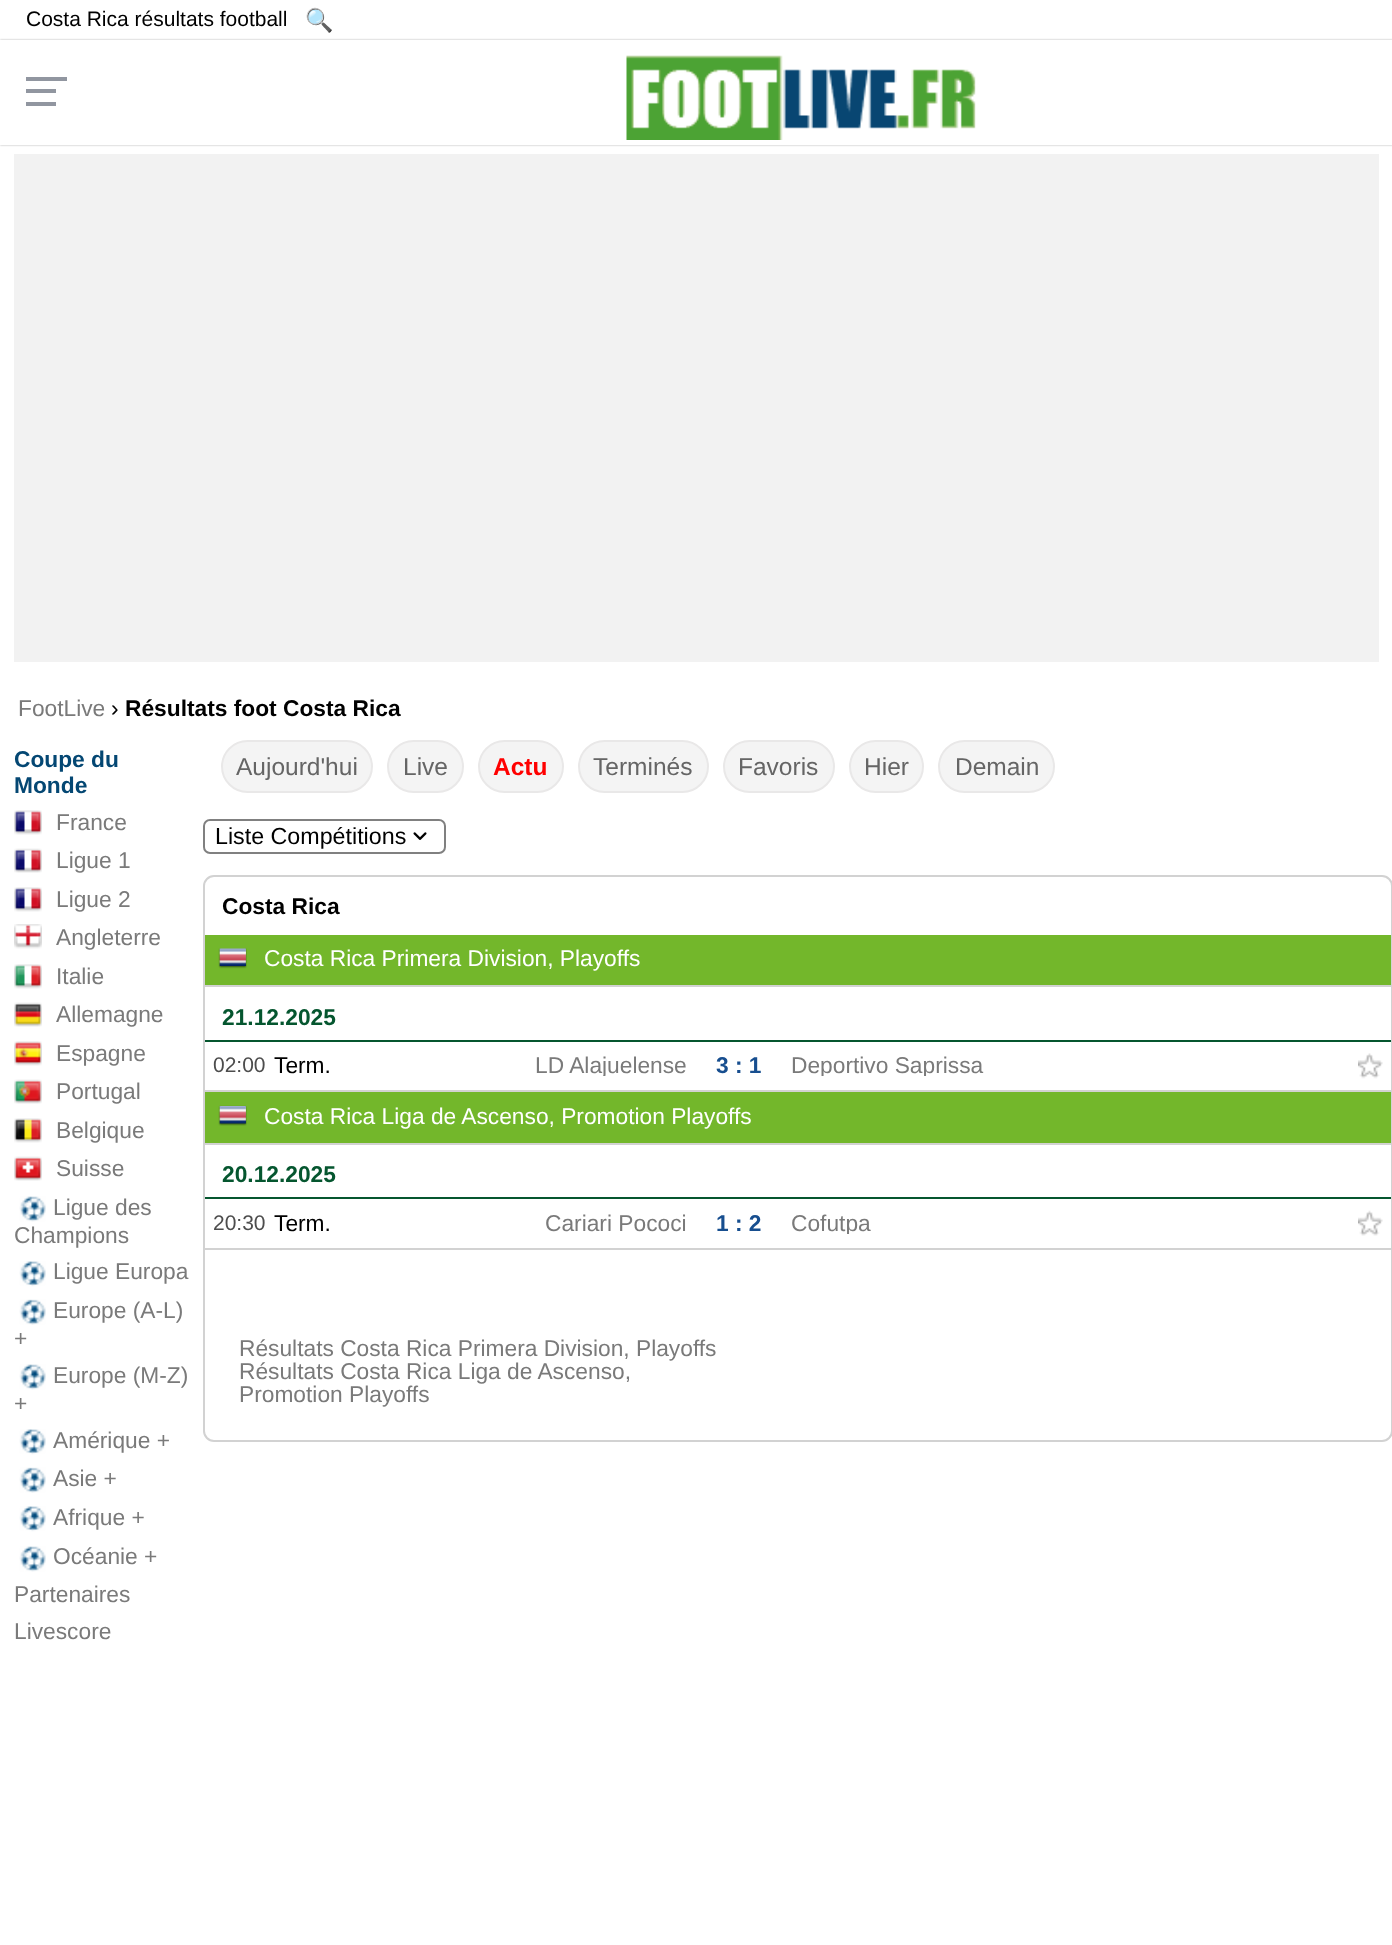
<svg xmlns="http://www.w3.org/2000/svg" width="1392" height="1945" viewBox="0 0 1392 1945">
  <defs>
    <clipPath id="clip1"><rect x="336" y="1054" width="350" height="22"/></clipPath>
    <clipPath id="clip2"><rect x="791" y="1054" width="350" height="22"/></clipPath>
    <clipPath id="clip3"><rect x="791" y="1211" width="350" height="23"/></clipPath>
  </defs>
  <rect width="100%" height="100%" fill="rgb(255,255,255)"/>
  <text x="26" y="26" font-family="Liberation Sans" font-size="21" fill="rgb(0,0,0)">Costa Rica résultats football</text>
  <text x="305" y="28" font-family="Noto Color Emoji" font-size="22.75" fill="rgb(122,122,122)">🔍</text>
  <rect x="0" y="40" width="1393" height="105" fill="rgba(0,0,0,0.3)" filter="blur(1px)"/>
  <rect x="0" y="40" width="1392" height="105" fill="rgb(255,255,255)"/>
  <rect x="26" y="89" width="30" height="4" fill="rgb(145,150,160)"/>
  <rect x="26" y="77" width="41" height="4" fill="rgb(145,150,160)"/>
  <rect x="26" y="102" width="30" height="4" fill="rgb(145,150,160)"/>
  <image x="626" y="55" width="350" height="85" href="pic1.png"/>
  <rect x="14" y="154" width="1365" height="508" fill="rgb(242,242,242)"/>
  <text x="18" y="716" font-family="Liberation Sans" font-size="22.75" fill="rgb(122,122,122)">FootLive</text>
  <text x="111" y="716" font-family="Liberation Sans" font-size="22.75" fill="rgb(0,0,0)">›</text>
  <text x="125" y="716" font-family="Liberation Sans" font-size="22.75" font-weight="bold" fill="rgb(0,0,0)">Résultats foot Costa Rica</text>
  <g font-family="Liberation Sans" font-size="22.75" font-weight="bold" fill="rgb(4,71,115)">
    <text>
      <tspan x="14" y="767">Coupe du</tspan>
      <tspan x="14" y="793">Monde</tspan>
    </text>
  </g>
  <image x="14" y="810" width="28" height="25" href="pic2.png"/>
  <text x="56" y="830" font-family="Liberation Sans" font-size="22.75" fill="rgb(122,122,122)">France</text>
  <image x="14" y="848" width="28" height="25" href="pic3.png"/>
  <text x="56" y="868" font-family="Liberation Sans" font-size="22.75" fill="rgb(122,122,122)">Ligue 1</text>
  <image x="14" y="887" width="28" height="25" href="pic2.png"/>
  <text x="56" y="907" font-family="Liberation Sans" font-size="22.75" fill="rgb(122,122,122)">Ligue 2</text>
  <image x="14" y="924" width="28" height="25" href="pic4.png"/>
  <text x="56" y="945" font-family="Liberation Sans" font-size="22.75" fill="rgb(122,122,122)">Angleterre</text>
  <image x="14" y="964" width="28" height="25" href="pic5.png"/>
  <text x="56" y="984" font-family="Liberation Sans" font-size="22.75" fill="rgb(122,122,122)">Italie</text>
  <image x="14" y="1002" width="28" height="25" href="pic6.png"/>
  <text x="56" y="1022" font-family="Liberation Sans" font-size="22.75" fill="rgb(122,122,122)">Allemagne</text>
  <image x="14" y="1041" width="28" height="25" href="pic7.png"/>
  <text x="56" y="1061" font-family="Liberation Sans" font-size="22.75" fill="rgb(122,122,122)">Espagne</text>
  <image x="14" y="1079" width="28" height="25" href="pic8.png"/>
  <text x="56" y="1099" font-family="Liberation Sans" font-size="22.75" fill="rgb(122,122,122)">Portugal</text>
  <image x="14" y="1118" width="28" height="25" href="pic9.png"/>
  <text x="56" y="1138" font-family="Liberation Sans" font-size="22.75" fill="rgb(122,122,122)">Belgique</text>
  <image x="14" y="1156" width="28" height="25" href="pic10.png"/>
  <text x="56" y="1176" font-family="Liberation Sans" font-size="22.75" fill="rgb(122,122,122)">Suisse</text>
  <image x="19" y="1196" width="27" height="26" href="pic11.png"/>
  <g font-family="Liberation Sans" font-size="22.75" fill="rgb(122,122,122)">
    <text x="53" y="1215">Ligue des</text>
    <text x="14" y="1243">Champions</text>
  </g>
  <image x="19" y="1261" width="27" height="26" href="pic12.png"/>
  <text x="53" y="1279" font-family="Liberation Sans" font-size="22.75" fill="rgb(122,122,122)">Ligue Europa</text>
  <image x="19" y="1299" width="27" height="26" href="pic13.png"/>
  <g font-family="Liberation Sans" font-size="22.75" fill="rgb(122,122,122)">
    <text x="53" y="1318">Europe (A-L)</text>
    <text x="14" y="1346">+</text>
  </g>
  <image x="19" y="1364" width="27" height="26" href="pic11.png"/>
  <g font-family="Liberation Sans" font-size="22.75" fill="rgb(122,122,122)">
    <text x="53" y="1383">Europe (M-Z)</text>
    <text x="14" y="1411">+</text>
  </g>
  <image x="19" y="1429" width="27" height="26" href="pic12.png"/>
  <text x="53" y="1448" font-family="Liberation Sans" font-size="22.75" fill="rgb(122,122,122)">Amérique +</text>
  <image x="19" y="1467" width="27" height="26" href="pic13.png"/>
  <text x="53" y="1486" font-family="Liberation Sans" font-size="22.75" fill="rgb(122,122,122)">Asie +</text>
  <image x="19" y="1506" width="27" height="26" href="pic12.png"/>
  <text x="53" y="1525" font-family="Liberation Sans" font-size="22.75" fill="rgb(122,122,122)">Afrique +</text>
  <image x="19" y="1546" width="27" height="26" href="pic11.png"/>
  <g font-family="Liberation Sans" font-size="22.75" fill="rgb(122,122,122)">
    <text x="53" y="1564">Océanie +</text>
    <text>
      <tspan x="14" y="1602">Partenaires</tspan>
      <tspan x="14" y="1639">Livescore</tspan>
    </text>
  </g>
  <rect x="222" y="741" width="150" height="51" rx="25.5" fill="rgb(244,244,244)" stroke="rgb(233,232,232)" stroke-width="2"/>
  <text x="236" y="775" font-family="Liberation Sans" font-size="24.5" fill="rgb(101,101,101)">Aujourd'hui</text>
  <rect x="388" y="741" width="75" height="51" rx="25.5" fill="rgb(244,244,244)" stroke="rgb(233,232,232)" stroke-width="2"/>
  <text x="403" y="775" font-family="Liberation Sans" font-size="24.5" fill="rgb(101,101,101)">Live</text>
  <rect x="479" y="741" width="84" height="51" rx="25.5" fill="rgb(244,244,244)" stroke="rgb(233,232,232)" stroke-width="2"/>
  <text x="493" y="775" font-family="Liberation Sans" font-size="24.5" font-weight="bold" fill="rgb(255,0,0)">Actu</text>
  <rect x="579" y="741" width="129" height="51" rx="25.5" fill="rgb(244,244,244)" stroke="rgb(233,232,232)" stroke-width="2"/>
  <text x="593" y="775" font-family="Liberation Sans" font-size="24.5" fill="rgb(101,101,101)">Terminés</text>
  <rect x="724" y="741" width="110" height="51" rx="25.5" fill="rgb(244,244,244)" stroke="rgb(233,232,232)" stroke-width="2"/>
  <text x="738" y="775" font-family="Liberation Sans" font-size="24.5" fill="rgb(101,101,101)">Favoris</text>
  <rect x="850" y="741" width="73" height="51" rx="25.5" fill="rgb(244,244,244)" stroke="rgb(233,232,232)" stroke-width="2"/>
  <text x="864" y="775" font-family="Liberation Sans" font-size="24.5" fill="rgb(101,101,101)">Hier</text>
  <rect x="939" y="741" width="115" height="51" rx="25.5" fill="rgb(244,244,244)" stroke="rgb(233,232,232)" stroke-width="2"/>
  <text x="955" y="775" font-family="Liberation Sans" font-size="24.5" fill="rgb(101,101,101)">Demain</text>
  <rect x="204" y="820" width="241" height="33" rx="6" fill="none" stroke="rgb(128,128,128)" stroke-width="2"/>
  <text x="215" y="844" font-family="Liberation Sans" font-size="23.25" fill="rgb(0,0,0)">Liste Compétitions</text>
  <image x="413" y="832" width="14" height="8" href="pic14.png"/>
  <rect x="204" y="876" width="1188" height="565" rx="10" fill="none" stroke="rgb(210,210,210)" stroke-width="2"/>
  <text x="222" y="914" font-family="Liberation Sans" font-size="22.75" font-weight="bold" fill="rgb(0,0,0)">Costa Rica</text>
  <rect x="203" y="985" width="1189" height="2" fill="rgb(210,210,210)"/>
  <rect x="205" y="935" width="1186" height="50" fill="rgb(115,183,43)"/>
  <image x="218" y="948" width="29" height="21" href="pic15.png"/>
  <text x="264" y="966" font-family="Liberation Sans" font-size="22.75" fill="rgb(255,255,255)">Costa Rica Primera Division, Playoffs</text>
  <rect x="205" y="1040" width="1186" height="2" fill="rgb(5,86,47)"/>
  <text x="222" y="1025" font-family="Liberation Sans" font-size="22.75" font-weight="bold" fill="rgb(5,86,47)">21.12.2025</text>
  <rect x="203" y="1090" width="1189" height="2" fill="rgb(210,210,210)"/>
  <text x="213" y="1072" font-family="Liberation Sans" font-size="21" fill="rgb(77,77,77)">02:00</text>
  <text x="274" y="1073" font-family="Liberation Sans" font-size="22.75" fill="rgb(0,0,0)">Term.</text>
  <g clip-path="url(#clip1)">
    <text x="535" y="1073" font-family="Liberation Sans" font-size="22.75" fill="rgb(122,122,122)">LD Alajuelense</text>
  </g>
  <text x="716" y="1073" font-family="Liberation Sans" font-size="22.75" font-weight="bold" fill="rgb(23,78,143)">3 : 1</text>
  <g clip-path="url(#clip2)">
    <text x="791" y="1073" font-family="Liberation Sans" font-size="22.75" fill="rgb(122,122,122)">Deportivo Saprissa</text>
  </g>
  <image x="1358" y="1053" width="25" height="26" href="pic16.png"/>
  <rect x="203" y="1143" width="1189" height="2" fill="rgb(210,210,210)"/>
  <rect x="205" y="1092" width="1186" height="51" fill="rgb(115,183,43)"/>
  <image x="218" y="1105" width="29" height="21" href="pic17.png"/>
  <text x="264" y="1124" font-family="Liberation Sans" font-size="22.75" fill="rgb(255,255,255)">Costa Rica Liga de Ascenso, Promotion Playoffs</text>
  <rect x="205" y="1197" width="1186" height="2" fill="rgb(5,86,47)"/>
  <text x="222" y="1182" font-family="Liberation Sans" font-size="22.75" font-weight="bold" fill="rgb(5,86,47)">20.12.2025</text>
  <rect x="203" y="1248" width="1189" height="2" fill="rgb(210,210,210)"/>
  <text x="213" y="1230" font-family="Liberation Sans" font-size="21" fill="rgb(77,77,77)">20:30</text>
  <text x="274" y="1231" font-family="Liberation Sans" font-size="22.75" fill="rgb(0,0,0)">Term.</text>
  <text x="545" y="1231" font-family="Liberation Sans" font-size="22.75" fill="rgb(122,122,122)">Cariari Pococi</text>
  <text x="716" y="1231" font-family="Liberation Sans" font-size="22.75" font-weight="bold" fill="rgb(23,78,143)">1 : 2</text>
  <g clip-path="url(#clip3)">
    <text x="791" y="1231" font-family="Liberation Sans" font-size="22.75" fill="rgb(122,122,122)">Cofutpa</text>
  </g>
  <image x="1358" y="1210" width="25" height="26" href="pic18.png"/>
  <g font-family="Liberation Sans" font-size="22.75" fill="rgb(122,122,122)">
    <text>
      <tspan x="239" y="1356">Résultats Costa Rica Primera Division, Playoffs</tspan>
      <tspan x="239" y="1379">Résultats Costa Rica Liga de Ascenso,</tspan>
      <tspan x="239" y="1402">Promotion Playoffs</tspan>
    </text>
  </g>
</svg>
